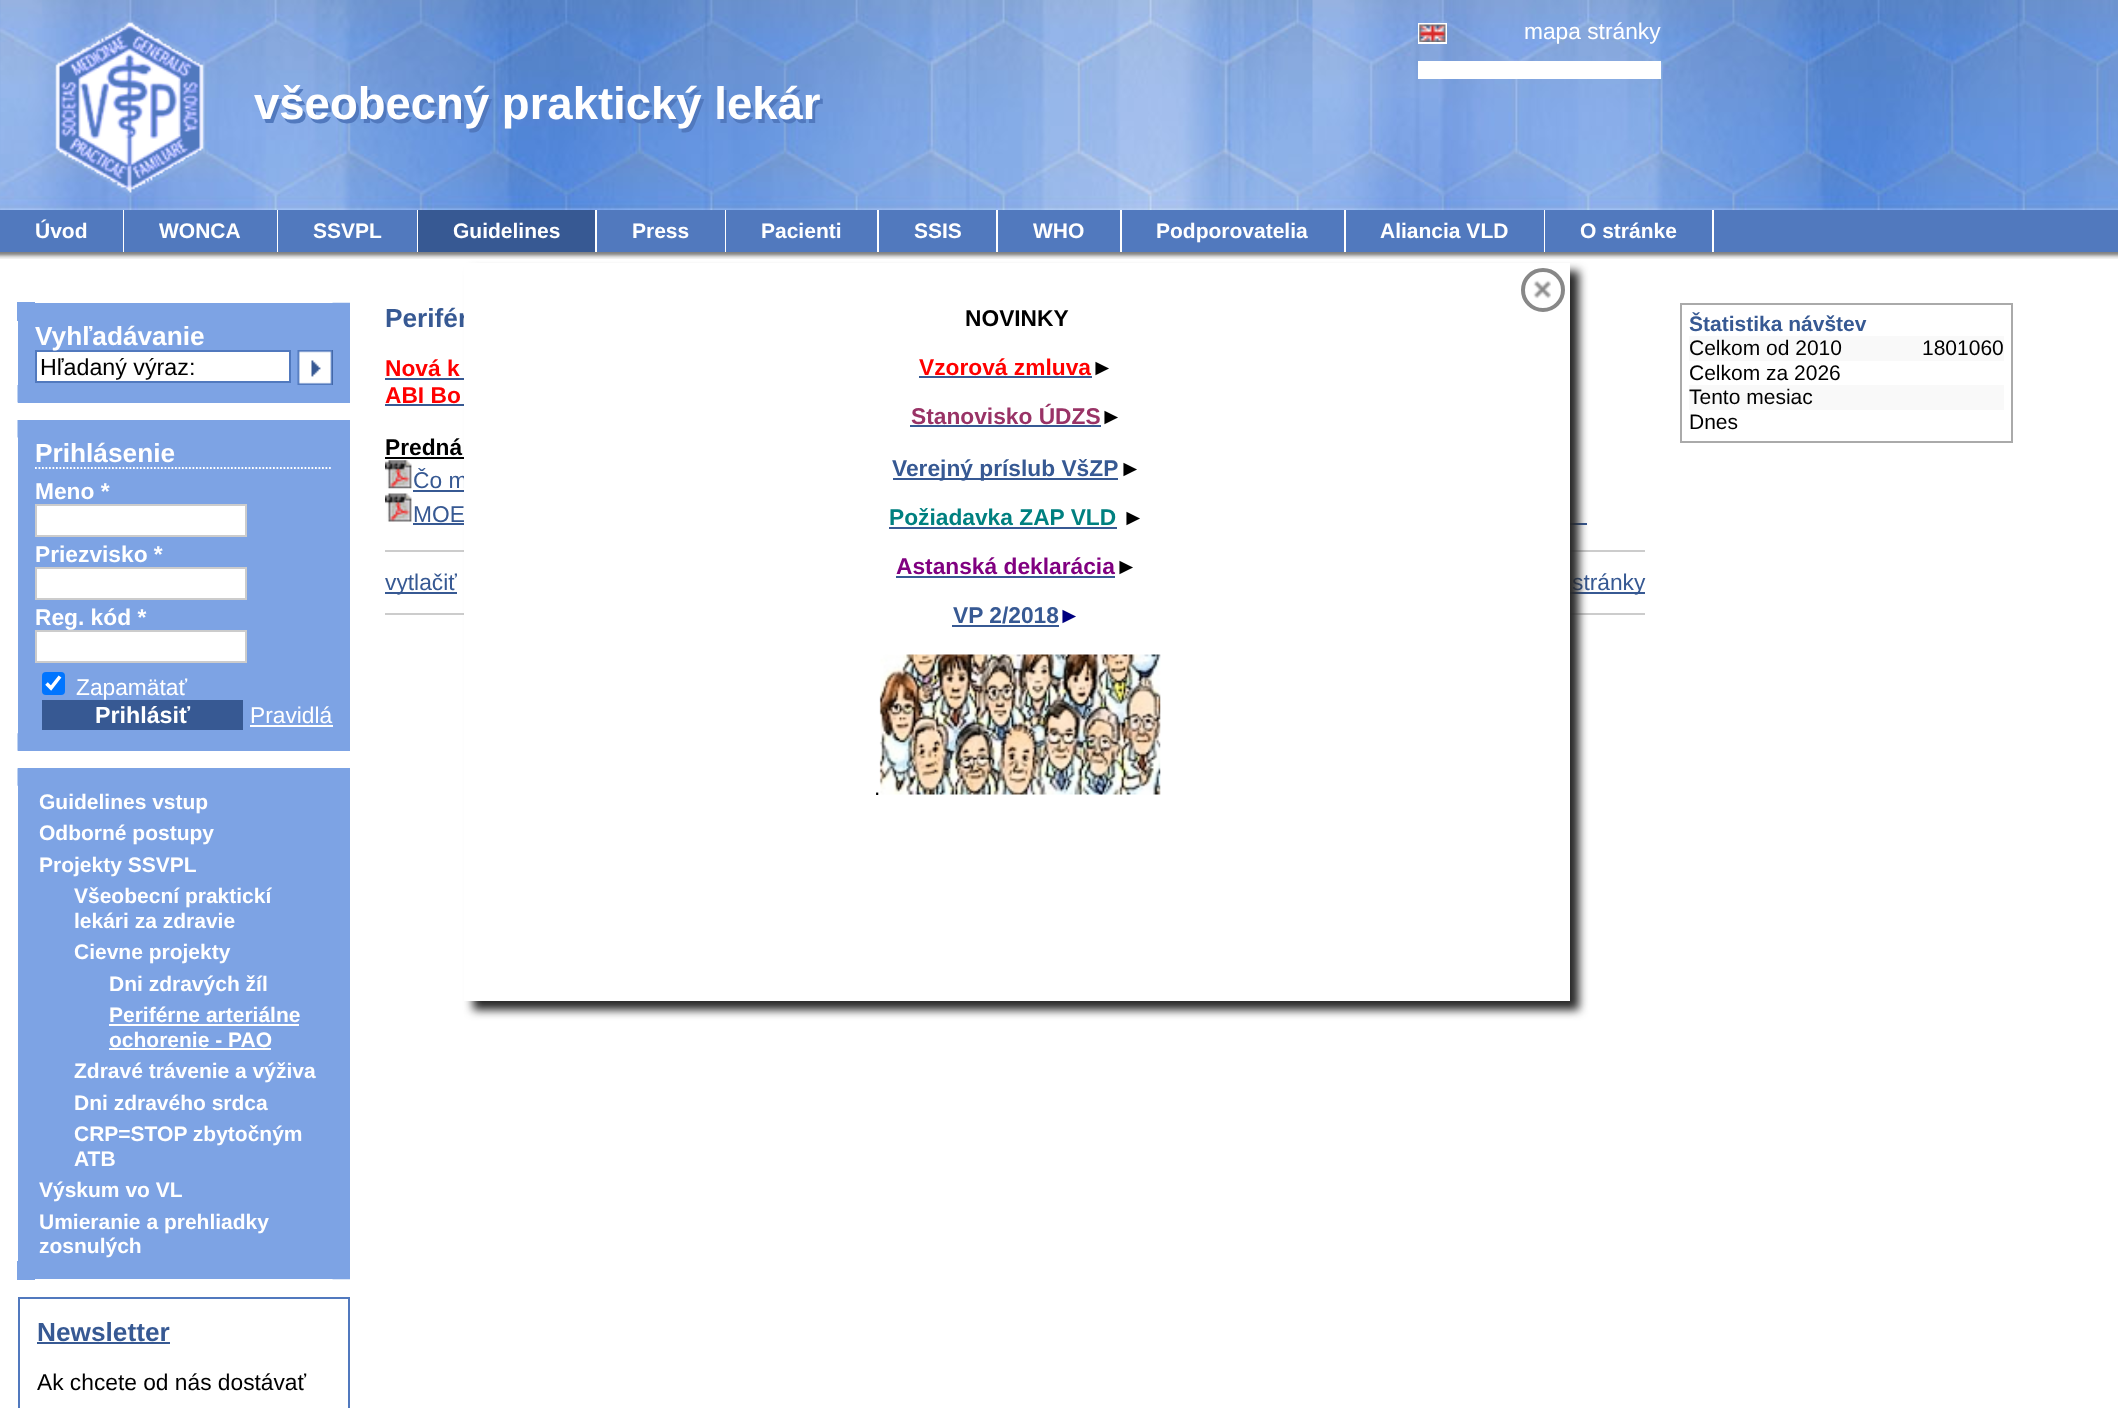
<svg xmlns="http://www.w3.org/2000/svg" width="2118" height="1408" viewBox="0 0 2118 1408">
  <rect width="100%" height="100%" fill="rgb(255,255,255)"/>
  <image x="0" y="0" width="2118" height="210" href="pic1.png"/>
  <image x="55" y="22" width="149" height="171" href="pic2.png"/>
  <rect x="1419" y="24" width="27" height="19" fill="none" stroke="rgb(255,255,255)" stroke-width="2"/>
  <text x="1524" y="39" font-family="Liberation Sans" font-size="22.75" fill="rgb(255,255,255)">mapa stránky</text>
  <image x="1419" y="24" width="27" height="18" href="pic3.png"/>
  <rect x="1418" y="61" width="243" height="18" fill="rgb(255,255,255)"/>
  <g font-family="Liberation Sans" font-size="45.5" font-weight="bold" fill="rgb(81,121,190)">
    <text x="257" y="123">všeobecný</text>
    <text x="616" y="123">ický lekár</text>
  </g>
  <text x="254" y="119" font-family="Liberation Sans" font-size="45.5" font-weight="bold" fill="rgb(255,255,255)">všeobecný praktický lekár</text>
  <rect x="0" y="210" width="2118" height="42" fill="rgb(81,121,190)"/>
  <image x="0" y="252" width="2118" height="7" href="pic4.png"/>
  <rect x="123" y="210" width="1" height="42" fill="rgb(255,255,255)"/>
  <text x="35" y="238" font-family="Liberation Sans" font-size="21" font-weight="bold" fill="rgb(255,255,255)">Úvod</text>
  <rect x="277" y="210" width="1" height="42" fill="rgb(255,255,255)"/>
  <text x="159" y="238" font-family="Liberation Sans" font-size="21" font-weight="bold" fill="rgb(255,255,255)">WONCA</text>
  <rect x="417" y="210" width="1" height="42" fill="rgb(255,255,255)"/>
  <text x="313" y="238" font-family="Liberation Sans" font-size="21" font-weight="bold" fill="rgb(255,255,255)">SSVPL</text>
  <rect x="418" y="210" width="177" height="42" fill="rgb(55,89,147)"/>
  <rect x="595" y="210" width="2" height="42" fill="rgb(255,255,255)"/>
  <text x="453" y="238" font-family="Liberation Sans" font-size="21" font-weight="bold" fill="rgb(255,255,255)">Guidelines</text>
  <rect x="725" y="210" width="1" height="42" fill="rgb(255,255,255)"/>
  <text x="632" y="238" font-family="Liberation Sans" font-size="21" font-weight="bold" fill="rgb(255,255,255)">Press</text>
  <rect x="877" y="210" width="2" height="42" fill="rgb(255,255,255)"/>
  <text x="761" y="238" font-family="Liberation Sans" font-size="21" font-weight="bold" fill="rgb(255,255,255)">Pacienti</text>
  <rect x="996" y="210" width="2" height="42" fill="rgb(255,255,255)"/>
  <text x="914" y="238" font-family="Liberation Sans" font-size="21" font-weight="bold" fill="rgb(255,255,255)">SSIS</text>
  <rect x="1120" y="210" width="2" height="42" fill="rgb(255,255,255)"/>
  <text x="1033" y="238" font-family="Liberation Sans" font-size="21" font-weight="bold" fill="rgb(255,255,255)">WHO</text>
  <rect x="1344" y="210" width="2" height="42" fill="rgb(255,255,255)"/>
  <text x="1156" y="238" font-family="Liberation Sans" font-size="21" font-weight="bold" fill="rgb(255,255,255)">Podporovatelia</text>
  <rect x="1544" y="210" width="1" height="42" fill="rgb(255,255,255)"/>
  <text x="1380" y="238" font-family="Liberation Sans" font-size="21" font-weight="bold" fill="rgb(255,255,255)">Aliancia VLD</text>
  <rect x="1712" y="210" width="2" height="42" fill="rgb(255,255,255)"/>
  <text x="1580" y="238" font-family="Liberation Sans" font-size="21" font-weight="bold" fill="rgb(255,255,255)">O stránke</text>
  <text x="385" y="327" font-family="Liberation Sans" font-size="26.25" font-weight="bold" fill="rgb(55,89,147)">Perifér</text>
  <text x="385" y="376" font-family="Liberation Sans" font-size="22.75" font-weight="bold" fill="rgb(255,0,0)">Nová k</text>
  <rect x="385" y="378" width="79" height="2" fill="rgb(55,89,147)"/>
  <text x="385" y="403" font-family="Liberation Sans" font-size="22.75" font-weight="bold" fill="rgb(255,0,0)">ABI Bo</text>
  <rect x="385" y="404" width="79" height="2" fill="rgb(55,89,147)"/>
  <text x="385" y="455" font-family="Liberation Sans" font-size="22.75" font-weight="bold" fill="rgb(0,0,0)">Predná</text>
  <rect x="385" y="457" width="79" height="2" fill="rgb(0,1,1)"/>
  <image x="385" y="460" width="27" height="29" href="pic5.png"/>
  <text x="413" y="488" font-family="Liberation Sans" font-size="22.75" fill="rgb(55,89,147)">Čo m</text>
  <rect x="413" y="490" width="51" height="2" fill="rgb(55,89,147)"/>
  <image x="385" y="493" width="27" height="29" href="pic6.png"/>
  <text x="413" y="522" font-family="Liberation Sans" font-size="22.75" fill="rgb(55,89,147)">MOE</text>
  <rect x="413" y="523" width="1174" height="2" fill="rgb(55,89,147)"/>
  <rect x="385" y="550" width="1260" height="2" fill="rgb(204,204,204)"/>
  <rect x="385" y="592" width="72" height="2" fill="rgb(55,89,147)"/>
  <text x="385" y="590" font-family="Liberation Sans" font-size="22.75" fill="rgb(55,89,147)">vytlačiť</text>
  <rect x="1570" y="592" width="75" height="2" fill="rgb(55,89,147)"/>
  <text x="1572" y="590" font-family="Liberation Sans" font-size="22.75" fill="rgb(55,89,147)">stránky</text>
  <rect x="385" y="613" width="1260" height="2" fill="rgb(204,204,204)"/>
  <rect x="35" y="303" width="315" height="17" fill="rgb(125,163,228)"/>
  <rect x="17" y="302" width="18" height="19" fill="rgb(125,163,228)"/>
  <image x="332" y="302" width="18" height="1" href="pic7.png"/>
  <rect x="18" y="320" width="332" height="83" fill="rgb(125,163,228)"/>
  <rect x="36" y="351" width="254" height="31" fill="rgb(255,255,255)" stroke="rgb(81,121,190)" stroke-width="2"/>
  <text x="35" y="345" font-family="Liberation Sans" font-size="26.25" font-weight="bold" fill="rgb(255,255,255)">Vyhľadávanie</text>
  <text x="40" y="375" font-family="Liberation Sans" font-size="23.25" fill="rgb(0,0,0)">Hľadaný výraz:</text>
  <rect x="332" y="350" width="1" height="35" fill="rgb(55,89,147)"/>
  <image x="297" y="350" width="36" height="35" href="pic8.png"/>
  <image x="17" y="385" width="1" height="18" href="pic9.png"/>
  <rect x="18" y="420" width="332" height="331" fill="rgb(125,163,228)"/>
  <image x="17" y="420" width="1" height="18" href="pic9.png"/>
  <path d="M35 468H332.5" fill="none" stroke="rgb(255,255,255)" stroke-width="1.8" stroke-dasharray="1.75 1.75"/>
  <text x="35" y="462" font-family="Liberation Sans" font-size="26.25" font-weight="bold" fill="rgb(255,255,255)">Prihlásenie</text>
  <text x="35" y="499" font-family="Liberation Sans" font-size="22.75" font-weight="bold" fill="rgb(255,255,255)">Meno *</text>
  <rect x="36" y="505" width="210" height="31" fill="rgb(255,255,255)" stroke="rgb(204,204,204)" stroke-width="2"/>
  <text x="35" y="562" font-family="Liberation Sans" font-size="22.75" font-weight="bold" fill="rgb(255,255,255)">Priezvisko *</text>
  <rect x="36" y="568" width="210" height="31" fill="rgb(255,255,255)" stroke="rgb(204,204,204)" stroke-width="2"/>
  <text x="35" y="625" font-family="Liberation Sans" font-size="22.75" font-weight="bold" fill="rgb(255,255,255)">Reg. kód *</text>
  <rect x="36" y="631" width="210" height="31" fill="rgb(255,255,255)" stroke="rgb(204,204,204)" stroke-width="2"/>
  <rect x="42" y="672" width="23" height="23" rx="4" fill="rgb(0,117,255)"/>
  <path d="M46.5 683.5L51 688L60 676.5" fill="none" stroke="rgb(255,255,255)" stroke-width="3.6"/>
  <text x="76" y="695" font-family="Liberation Sans" font-size="22.75" fill="rgb(255,255,255)">Zapamätať</text>
  <rect x="42" y="700" width="201" height="30" fill="rgb(55,89,147)"/>
  <text x="95" y="723" font-family="Liberation Sans" font-size="23.25" font-weight="bold" fill="rgb(255,255,255)">Prihlásiť</text>
  <text x="250" y="723" font-family="Liberation Sans" font-size="22.75" fill="rgb(255,255,255)">Pravidlá</text>
  <rect x="250" y="725" width="83" height="2" fill="rgb(255,255,255)"/>
  <image x="17" y="733" width="1" height="18" href="pic10.png"/>
  <rect x="18" y="768" width="332" height="494" fill="rgb(125,163,228)"/>
  <image x="17" y="768" width="1" height="18" href="pic10.png"/>
  <g font-family="Liberation Sans" font-size="21" font-weight="bold" fill="rgb(255,255,255)">
    <text>
      <tspan x="39" y="809">Guidelines vstup</tspan>
      <tspan x="39" y="840">Odborné postupy</tspan>
      <tspan x="39" y="872">Projekty SSVPL</tspan>
    </text>
    <text>
      <tspan x="74" y="903">Všeobecní praktickí</tspan>
      <tspan x="74" y="928">lekári za zdravie</tspan>
      <tspan x="74" y="959">Cievne projekty</tspan>
    </text>
    <text>
      <tspan x="109" y="991">Dni zdravých žíl</tspan>
      <tspan x="109" y="1022">Periférne arteriálne</tspan>
    </text>
  </g>
  <rect x="109" y="1024" width="190" height="2" fill="rgb(255,255,255)"/>
  <text x="109" y="1047" font-family="Liberation Sans" font-size="21" font-weight="bold" fill="rgb(255,255,255)">ochorenie - PAO</text>
  <rect x="109" y="1048" width="162" height="2" fill="rgb(255,255,255)"/>
  <g font-family="Liberation Sans" font-size="21" font-weight="bold" fill="rgb(255,255,255)">
    <text>
      <tspan x="74" y="1078">Zdravé trávenie a výživa</tspan>
      <tspan x="74" y="1110">Dni zdravého srdca</tspan>
      <tspan x="74" y="1141">CRP=STOP zbytočným</tspan>
      <tspan x="74" y="1166">ATB</tspan>
    </text>
    <text>
      <tspan x="39" y="1197">Výskum vo VL</tspan>
      <tspan x="39" y="1229">Umieranie a prehliadky</tspan>
      <tspan x="39" y="1253">zosnulých</tspan>
    </text>
  </g>
  <rect x="35" y="1262" width="315" height="17" fill="rgb(125,163,228)"/>
  <rect x="17" y="1261" width="18" height="19" fill="rgb(125,163,228)"/>
  <image x="332" y="1279" width="18" height="1" href="pic7.png"/>
  <rect x="19" y="1298" width="330" height="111" fill="none" stroke="rgb(81,121,190)" stroke-width="2"/>
  <text x="37" y="1341" font-family="Liberation Sans" font-size="26.25" font-weight="bold" fill="rgb(55,89,147)">Newsletter</text>
  <rect x="37" y="1342" width="133" height="2" fill="rgb(55,89,147)"/>
  <text x="37" y="1390" font-family="Liberation Sans" font-size="22.75" fill="rgb(0,0,0)">Ak chcete od nás dostávať</text>
  <rect x="473" y="271" width="1106" height="739" fill="rgb(40,40,40)" filter="blur(5px)"/>
  <rect x="464" y="263" width="1106" height="738" fill="rgb(255,255,255)"/>
  <image x="1533" y="280" width="18" height="19" href="pic11.png"/>
  <circle cx="1543" cy="290" r="20" fill="none" stroke="rgb(136,136,136)" stroke-width="4"/>
  <text x="965" y="326" font-family="Liberation Sans" font-size="22.75" font-weight="bold" fill="rgb(0,0,0)">NOVINKY</text>
  <text x="919" y="375" font-family="Liberation Sans" font-size="22.75" font-weight="bold" fill="rgb(255,0,0)">Vzorová zmluva</text>
  <rect x="919" y="376" width="173" height="2" fill="rgb(55,89,147)"/>
  <text x="1091" y="375" font-family="Liberation Sans" font-size="22.75" font-weight="bold" fill="rgb(0,0,0)">►</text>
  <text x="911" y="424" font-family="Liberation Sans" font-size="22.75" font-weight="bold" fill="rgb(153,51,102)">Stanovisko ÚDZS</text>
  <text x="1100" y="424" font-family="Liberation Sans" font-size="22.75" font-weight="bold" fill="rgb(0,0,0)">►</text>
  <rect x="910" y="425" width="191" height="2" fill="rgb(55,89,147)"/>
  <rect x="893" y="478" width="225" height="2" fill="rgb(55,89,147)"/>
  <text x="892" y="476" font-family="Liberation Sans" font-size="22.75" font-weight="bold" fill="rgb(55,89,147)">Verejný príslub VšZP</text>
  <text x="1119" y="476" font-family="Liberation Sans" font-size="22.75" font-weight="bold" fill="rgb(0,0,0)">►</text>
  <text x="889" y="525" font-family="Liberation Sans" font-size="22.75" font-weight="bold" fill="rgb(0,128,128)">Požiadavka ZAP VLD</text>
  <rect x="889" y="527" width="228" height="2" fill="rgb(55,89,147)"/>
  <text x="1122" y="525" font-family="Liberation Sans" font-size="22.75" fill="rgb(0,0,0)">►</text>
  <text x="896" y="574" font-family="Liberation Sans" font-size="22.75" font-weight="bold" fill="rgb(128,0,128)">Astanská deklarácia</text>
  <rect x="896" y="576" width="219" height="2" fill="rgb(55,89,147)"/>
  <text x="1115" y="574" font-family="Liberation Sans" font-size="22.75" fill="rgb(0,0,0)">►</text>
  <text x="953" y="623" font-family="Liberation Sans" font-size="22.75" font-weight="bold" fill="rgb(55,89,147)">VP 2/2018</text>
  <rect x="952" y="625" width="107" height="2" fill="rgb(55,89,147)"/>
  <text x="1058" y="623" font-family="Liberation Sans" font-size="22.75" fill="rgb(0,0,128)">►</text>
  <text x="874" y="795" font-family="Liberation Sans" font-size="22.75" fill="rgb(0,0,0)">.</text>
  <image x="879" y="654" width="282" height="141" href="pic12.png"/>
  <rect x="1681" y="304" width="331" height="138" fill="none" stroke="rgb(170,170,170)" stroke-width="2"/>
  <text x="1689" y="331" font-family="Liberation Sans" font-size="21" font-weight="bold" fill="rgb(55,89,147)">Štatistika návštev</text>
  <rect x="1689" y="336" width="315" height="25" fill="rgb(249,249,249)"/>
  <g font-family="Liberation Sans" font-size="21" fill="rgb(0,0,0)">
    <text x="1689" y="355">Celkom od 2010</text>
    <text x="1922" y="355">1801060</text>
    <text x="1689" y="380">Celkom za 2026</text>
  </g>
  <rect x="1689" y="385" width="315" height="25" fill="rgb(249,249,249)"/>
  <g font-family="Liberation Sans" font-size="21" fill="rgb(0,0,0)">
    <text>
      <tspan x="1689" y="404">Tento mesiac</tspan>
      <tspan x="1689" y="429">Dnes</tspan>
    </text>
  </g>
</svg>
